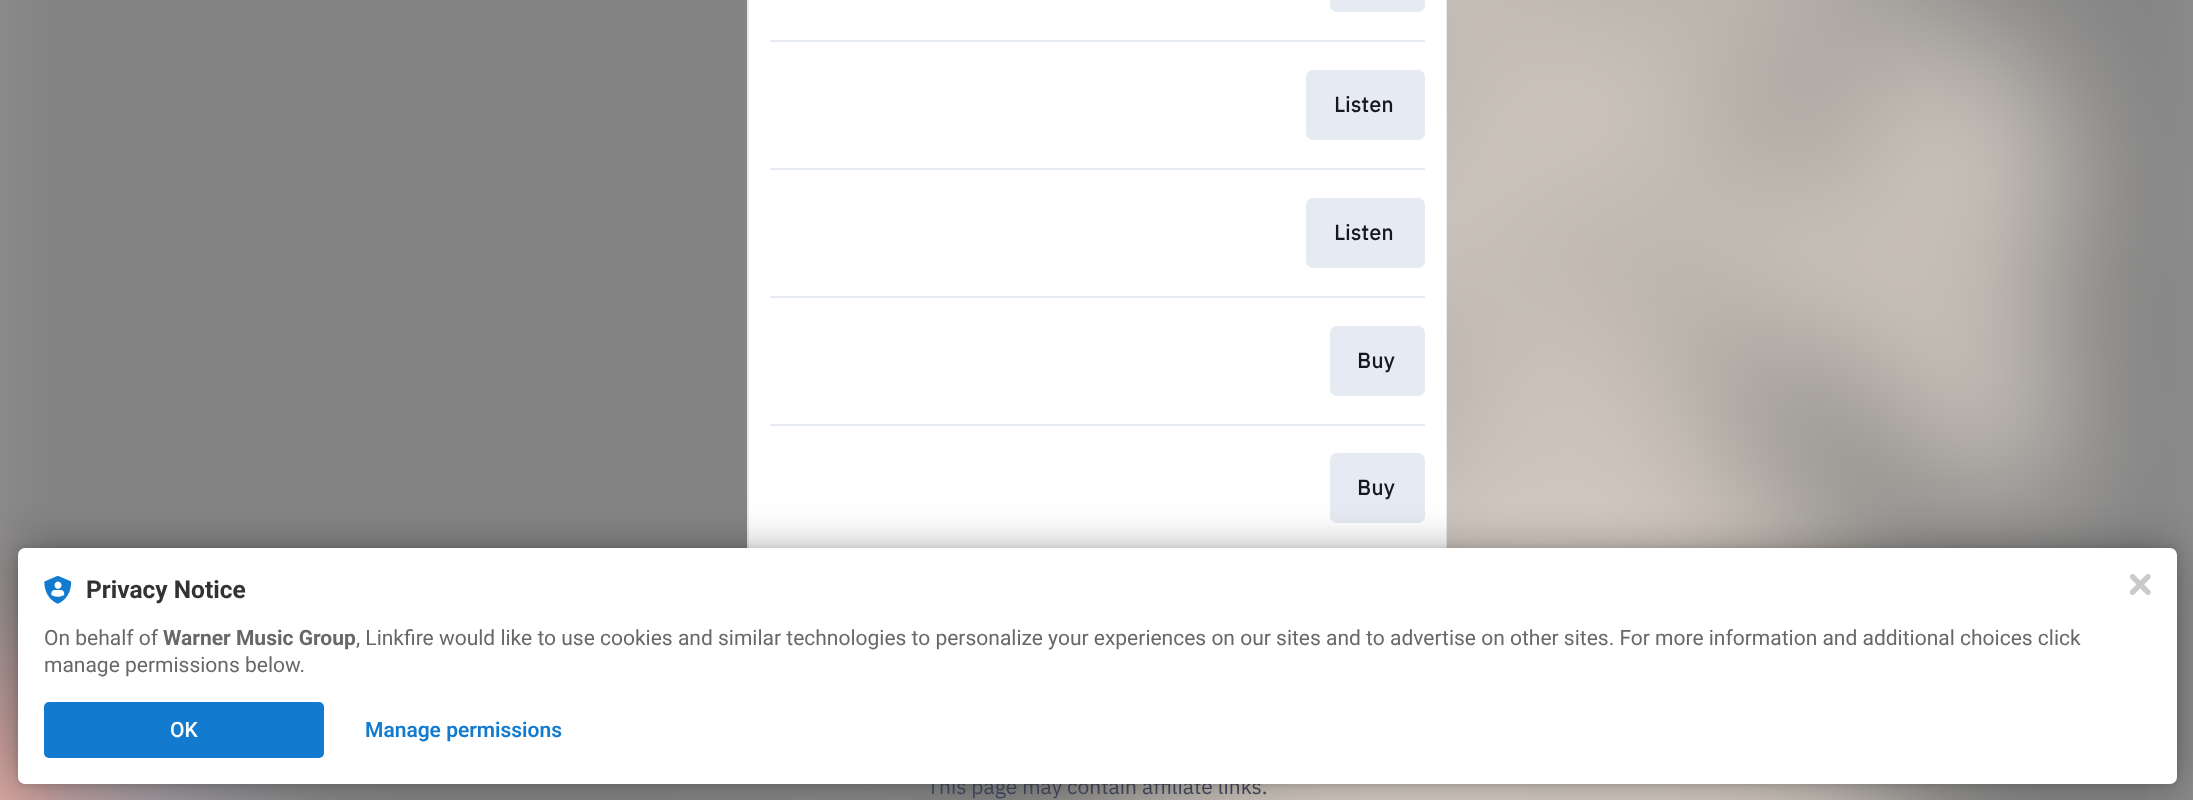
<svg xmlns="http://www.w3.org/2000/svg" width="2193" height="800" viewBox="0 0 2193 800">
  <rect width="100%" height="100%" fill="rgb(255,255,255)"/>
  <image x="0" y="0" width="2193" height="800" href="pic1.png"/>
  <rect x="748" y="-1" width="698" height="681" fill="none" stroke="rgb(230,234,242)" stroke-width="2"/>
  <rect x="749" y="0" width="697" height="548" fill="rgb(255,255,255)"/>
  <rect x="1330" y="-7" width="95" height="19" rx="7" fill="rgb(230,234,242)"/>
  <rect x="770" y="40" width="655" height="2" fill="rgb(230,234,242)"/>
  <rect x="1306" y="70" width="119" height="70" rx="7" fill="rgb(230,234,242)"/>
  <text x="1334" y="112" font-family="IBM Plex Sans" font-size="21" font-weight="bold" letter-spacing="0.5" fill="rgb(24,23,33)">Listen</text>
  <rect x="770" y="168" width="655" height="2" fill="rgb(230,234,242)"/>
  <rect x="1306" y="198" width="119" height="70" rx="7" fill="rgb(230,234,242)"/>
  <text x="1334" y="240" font-family="IBM Plex Sans" font-size="21" font-weight="bold" letter-spacing="0.5" fill="rgb(24,23,33)">Listen</text>
  <rect x="770" y="296" width="655" height="2" fill="rgb(230,234,242)"/>
  <rect x="1330" y="326" width="95" height="70" rx="7" fill="rgb(230,234,242)"/>
  <text x="1357" y="368" font-family="IBM Plex Sans" font-size="21" font-weight="bold" letter-spacing="0.5" fill="rgb(24,23,33)">Buy</text>
  <rect x="770" y="424" width="655" height="2" fill="rgb(230,234,242)"/>
  <rect x="1330" y="453" width="95" height="70" rx="7" fill="rgb(230,234,242)"/>
  <text x="1357" y="495" font-family="IBM Plex Sans" font-size="21" font-weight="bold" letter-spacing="0.5" fill="rgb(24,23,33)">Buy</text>
  <text x="927" y="794" font-family="IBM Plex Sans" font-size="21" fill="rgb(69,75,95)">This page may contain affiliate links.</text>
  <rect x="18" y="548" width="2159" height="236" rx="7" fill="rgba(0,0,0,0.12)" filter="blur(3.5px)"/>
  <rect x="18" y="548" width="2159" height="236" rx="7" fill="rgba(0,0,0,0.3)" filter="blur(21px)"/>
  <rect x="18" y="548" width="2159" height="236" rx="7" fill="rgb(255,255,255)"/>
  <image x="44" y="576" width="28" height="28" href="pic2.png"/>
  <text x="86" y="598" font-family="Roboto" font-size="24.5" font-weight="bold" fill="rgb(50,50,50)">Privacy Notice</text>
  <text x="44" y="645" font-family="Roboto" font-size="21" fill="rgb(104,104,104)">On behalf of</text>
  <text x="163" y="645" font-family="Roboto" font-size="21" font-weight="bold" fill="rgb(104,104,104)">Warner Music Group</text>
  <g font-family="Roboto" font-size="21" fill="rgb(104,104,104)">
    <text x="356" y="645">, Linkfire would like to use cookies and similar technologies to personalize your experiences on our sites and to advertise on other sites. For more information and additional choices click</text>
    <text x="44" y="672">manage permissions below.</text>
  </g>
  <rect x="44" y="702" width="280" height="56" rx="5" fill="rgb(19,123,207)"/>
  <text x="170" y="737" font-family="Roboto" font-size="21" font-weight="500" fill="rgb(255,255,255)">OK</text>
  <text x="365" y="737" font-family="Roboto" font-size="21" font-weight="600" fill="rgb(19,123,207)">Manage permissions</text>
  <image x="2130" y="574" width="21" height="21" href="pic3.png"/>
</svg>
